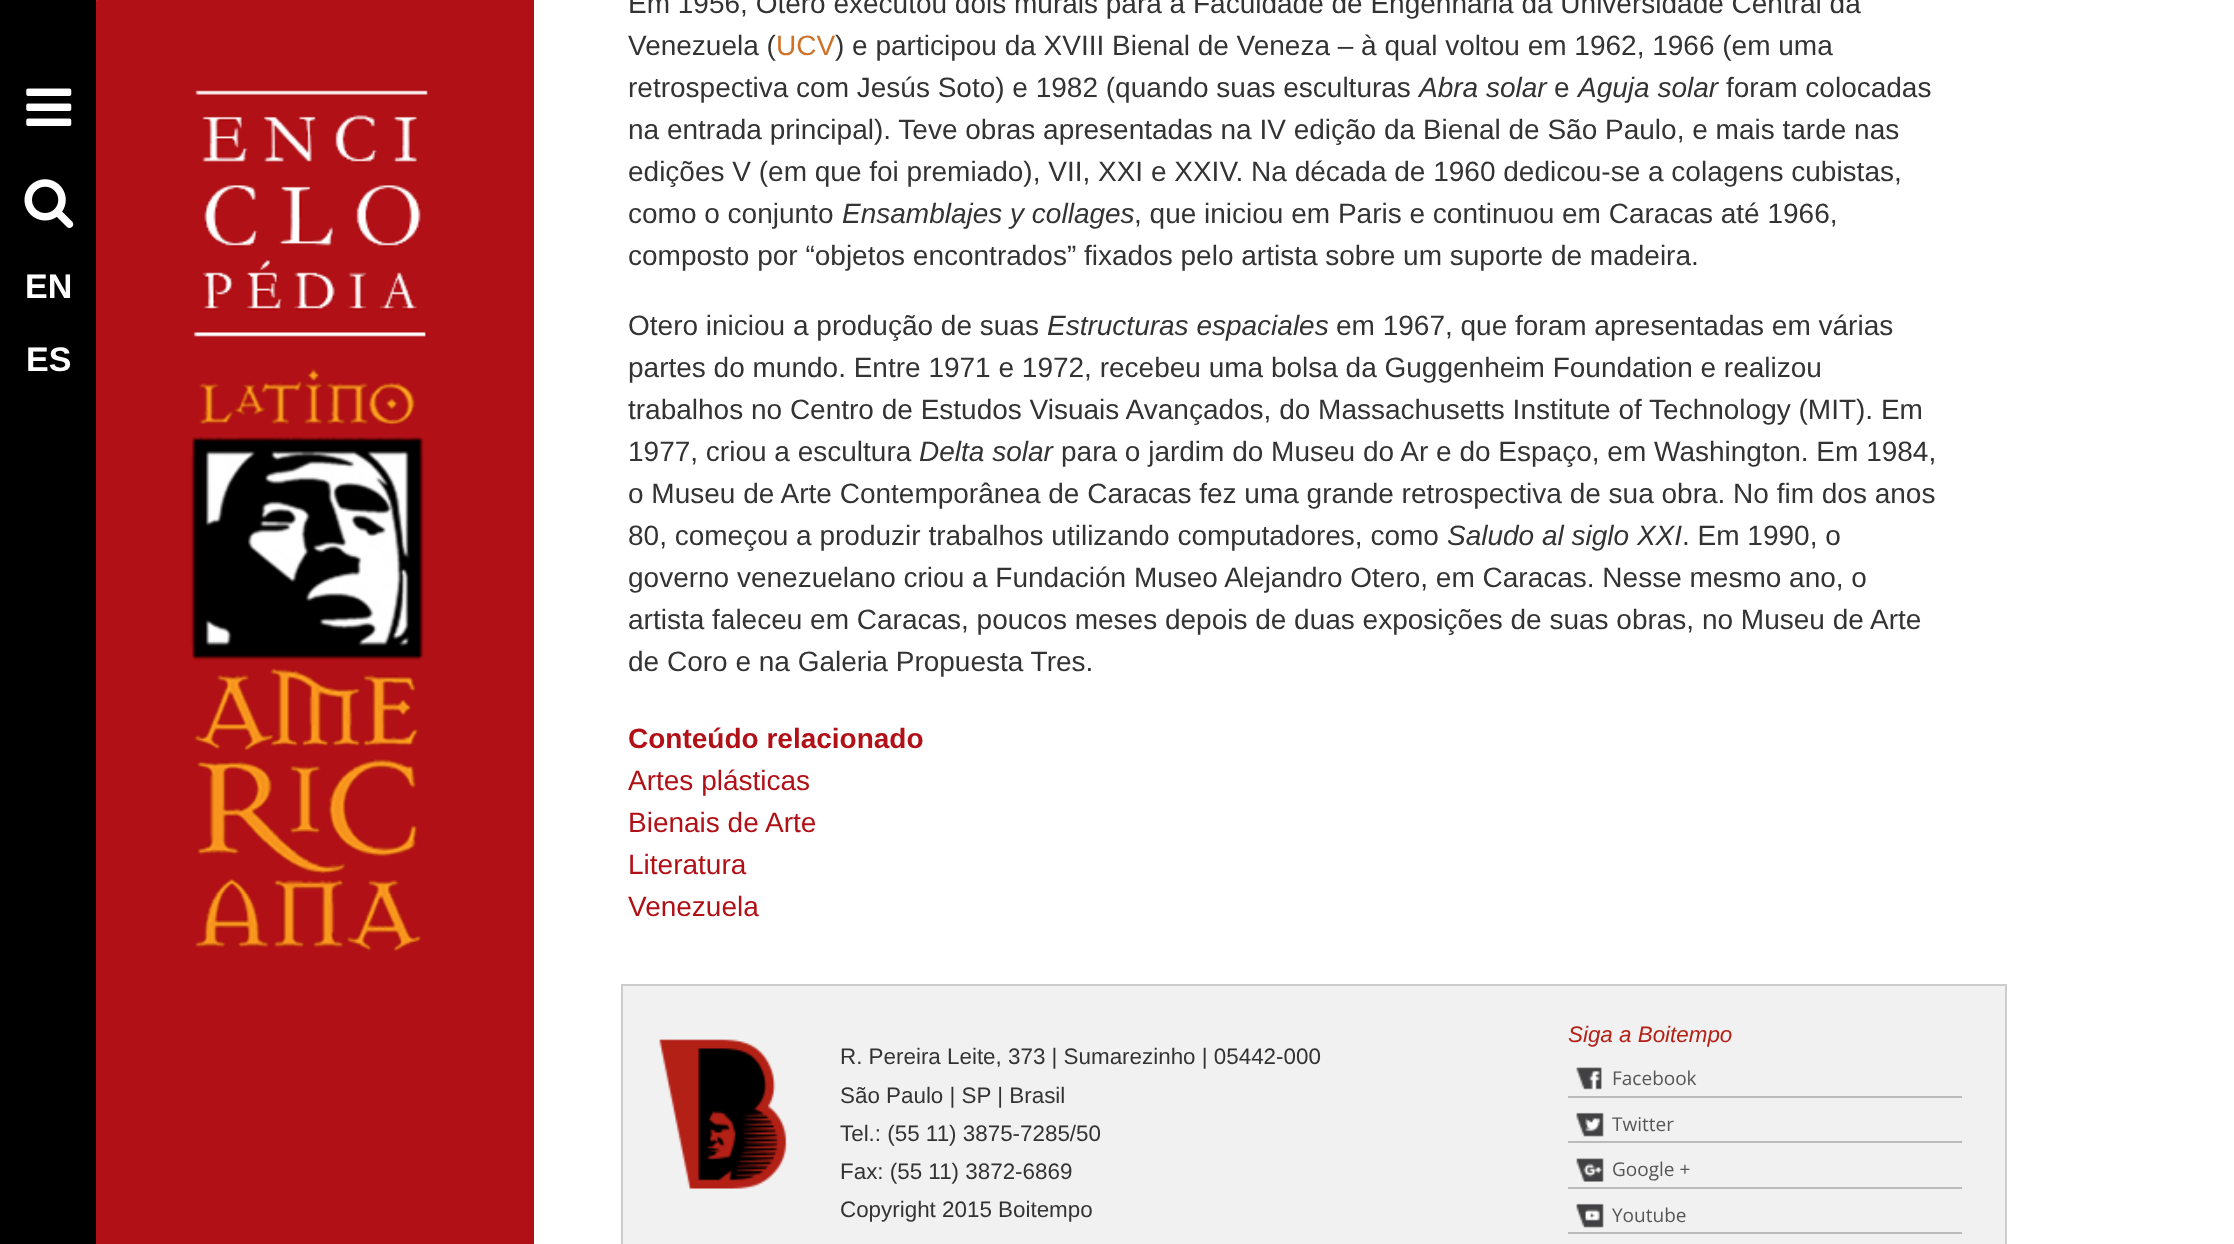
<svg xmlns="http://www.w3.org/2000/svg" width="2234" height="1244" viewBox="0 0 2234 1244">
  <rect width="100%" height="100%" fill="rgb(255,255,255)"/>
  <rect x="0" y="0" width="96" height="1244" fill="rgb(0,0,0)"/>
  <image x="26" y="88" width="46" height="38" href="pic1.png"/>
  <image x="24" y="179" width="50" height="49" href="pic2.png"/>
  <g font-family="Liberation Sans" font-size="34" font-weight="bold" fill="rgb(255,255,255)">
    <text x="25" y="298">EN</text>
    <text x="26" y="371">ES</text>
  </g>
  <rect x="96" y="0" width="438" height="1244" fill="rgb(177,16,22)"/>
  <image x="96" y="0" width="333" height="951" href="pic3.png"/>
  <g font-family="Liberation Sans" font-size="28" fill="rgb(51,51,51)">
    <text>
      <tspan x="628" y="13">Em 1956, Otero executou dois murais para a Faculdade de Engenharia da Universidade Central da</tspan>
      <tspan x="628" y="55">Venezuela (</tspan>
    </text>
  </g>
  <text x="776" y="55" font-family="Liberation Sans" font-size="28" fill="rgb(207,113,39)">UCV</text>
  <g font-family="Liberation Sans" font-size="28" fill="rgb(51,51,51)">
    <text x="835" y="55">) e participou da XVIII Bienal de Veneza – à qual voltou em 1962, 1966 (em uma</text>
    <text x="628" y="97">retrospectiva com Jesús Soto) e 1982 (quando suas esculturas</text>
  </g>
  <text x="1419" y="97" font-family="Liberation Sans" font-size="28" font-style="italic" fill="rgb(51,51,51)">Abra solar</text>
  <text x="1554" y="97" font-family="Liberation Sans" font-size="28" fill="rgb(51,51,51)">e</text>
  <text x="1578" y="97" font-family="Liberation Sans" font-size="28" font-style="italic" fill="rgb(51,51,51)">Aguja solar</text>
  <g font-family="Liberation Sans" font-size="28" fill="rgb(51,51,51)">
    <text x="1726" y="97">foram colocadas</text>
    <text>
      <tspan x="628" y="139">na entrada principal). Teve obras apresentadas na IV edição da Bienal de São Paulo, e mais tarde nas</tspan>
      <tspan x="628" y="181">edições V (em que foi premiado), VII, XXI e XXIV. Na década de 1960 dedicou-se a colagens cubistas,</tspan>
      <tspan x="628" y="223">como o conjunto</tspan>
    </text>
  </g>
  <text x="842" y="223" font-family="Liberation Sans" font-size="28" font-style="italic" fill="rgb(51,51,51)">Ensamblajes y collages</text>
  <g font-family="Liberation Sans" font-size="28" fill="rgb(51,51,51)">
    <text x="1134" y="223">, que iniciou em Paris e continuou em Caracas até 1966,</text>
    <text x="628" y="265">composto por “objetos encontrados” fixados pelo artista sobre um suporte de madeira.</text>
    <text x="628" y="335">Otero iniciou a produção de suas</text>
  </g>
  <text x="1047" y="335" font-family="Liberation Sans" font-size="28" font-style="italic" fill="rgb(51,51,51)">Estructuras espaciales</text>
  <g font-family="Liberation Sans" font-size="28" fill="rgb(51,51,51)">
    <text x="1336" y="335">em 1967, que foram apresentadas em várias</text>
    <text>
      <tspan x="628" y="377">partes do mundo. Entre 1971 e 1972, recebeu uma bolsa da Guggenheim Foundation e realizou</tspan>
      <tspan x="628" y="419">trabalhos no Centro de Estudos Visuais Avançados, do Massachusetts Institute of Technology (MIT). Em</tspan>
      <tspan x="628" y="461">1977, criou a escultura</tspan>
    </text>
  </g>
  <text x="919" y="461" font-family="Liberation Sans" font-size="28" font-style="italic" fill="rgb(51,51,51)">Delta solar</text>
  <g font-family="Liberation Sans" font-size="28" fill="rgb(51,51,51)">
    <text x="1061" y="461">para o jardim do Museu do Ar e do Espaço, em Washington. Em 1984,</text>
    <text>
      <tspan x="628" y="503">o Museu de Arte Contemporânea de Caracas fez uma grande retrospectiva de sua obra. No fim dos anos</tspan>
      <tspan x="628" y="545">80, começou a produzir trabalhos utilizando computadores, como</tspan>
    </text>
  </g>
  <text x="1447" y="545" font-family="Liberation Sans" font-size="28" font-style="italic" fill="rgb(51,51,51)">Saludo al siglo XXI</text>
  <g font-family="Liberation Sans" font-size="28" fill="rgb(51,51,51)">
    <text x="1682" y="545">. Em 1990, o</text>
    <text>
      <tspan x="628" y="587">governo venezuelano criou a Fundación Museo Alejandro Otero, em Caracas. Nesse mesmo ano, o</tspan>
      <tspan x="628" y="629">artista faleceu em Caracas, poucos meses depois de duas exposições de suas obras, no Museu de Arte</tspan>
      <tspan x="628" y="671">de Coro e na Galeria Propuesta Tres.</tspan>
    </text>
  </g>
  <text x="628" y="748" font-family="Liberation Sans" font-size="28" font-weight="bold" fill="rgb(177,16,22)">Conteúdo relacionado</text>
  <g font-family="Liberation Sans" font-size="28" fill="rgb(177,16,22)">
    <text>
      <tspan x="628" y="790">Artes plásticas</tspan>
      <tspan x="628" y="832">Bienais de Arte</tspan>
      <tspan x="628" y="874">Literatura</tspan>
      <tspan x="628" y="916">Venezuela</tspan>
    </text>
  </g>
  <rect x="622" y="985" width="1384" height="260" fill="rgb(241,241,241)" stroke="rgb(204,204,204)" stroke-width="2"/>
  <image x="659" y="1039" width="128" height="150" href="pic4.png"/>
  <g font-family="Liberation Sans" font-size="22.4" fill="rgb(51,51,51)">
    <text>
      <tspan x="840" y="1064">R. Pereira Leite, 373 | Sumarezinho | 05442-000</tspan>
      <tspan x="840" y="1103">São Paulo | SP | Brasil</tspan>
      <tspan x="840" y="1141">Tel.: (55 11) 3875-7285/50</tspan>
      <tspan x="840" y="1179">Fax: (55 11) 3872-6869</tspan>
      <tspan x="840" y="1217">Copyright 2015 Boitempo</tspan>
    </text>
  </g>
  <text x="1568" y="1042" font-family="Liberation Sans" font-size="22.4" font-style="italic" fill="rgb(179,33,23)">Siga a Boitempo</text>
  <image x="1576" y="1067" width="26" height="23" href="pic5.png"/>
  <rect x="1568" y="1096" width="394" height="2" fill="rgb(187,187,187)"/>
  <text x="1612" y="1085" font-family="Open Sans" font-size="19" fill="rgb(86,86,86)">Facebook</text>
  <image x="1576" y="1112" width="28" height="25" href="pic6.png"/>
  <rect x="1568" y="1141" width="394" height="2" fill="rgb(187,187,187)"/>
  <text x="1612" y="1131" font-family="Open Sans" font-size="19" fill="rgb(86,86,86)">Twitter</text>
  <image x="1576" y="1158" width="28" height="24" href="pic7.png"/>
  <rect x="1568" y="1187" width="394" height="2" fill="rgb(187,187,187)"/>
  <text x="1612" y="1176" font-family="Open Sans" font-size="19" fill="rgb(86,86,86)">Google +</text>
  <image x="1576" y="1203" width="28" height="25" href="pic8.png"/>
  <rect x="1568" y="1232" width="394" height="2" fill="rgb(187,187,187)"/>
  <text x="1612" y="1222" font-family="Open Sans" font-size="19" fill="rgb(86,86,86)">Youtube</text>
</svg>
